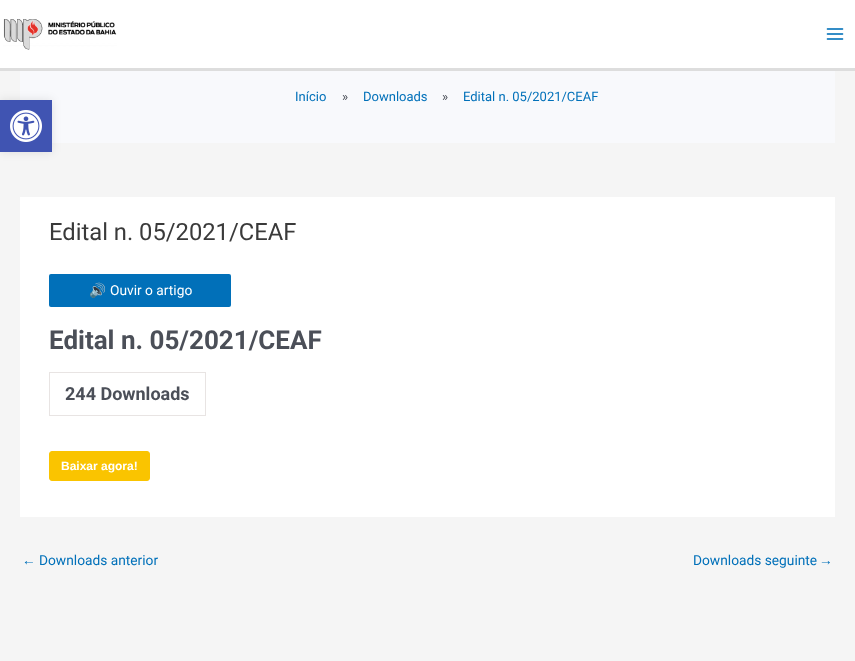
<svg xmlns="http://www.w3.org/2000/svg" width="855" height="661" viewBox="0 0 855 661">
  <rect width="100%" height="100%" fill="rgb(245,245,245)"/>
  <rect x="20" y="71" width="815" height="72" fill="rgb(248,249,252)"/>
  <rect x="0" y="100" width="52" height="52" fill="rgba(0,0,0,0.1)" filter="blur(5px)"/>
  <rect x="0" y="100" width="52" height="52" fill="rgb(64,84,178)"/>
  <image x="10" y="110" width="32" height="32" href="pic1.png"/>
  <rect x="0" y="0" width="855" height="68" fill="rgb(255,255,255)"/>
  <rect x="0" y="68" width="855" height="3" fill="rgb(221,221,221)"/>
  <image x="3" y="19" width="114" height="31" href="pic2.png"/>
  <image x="826" y="28" width="18" height="12" href="pic3.png"/>
  <text x="295" y="101" font-family="Roboto" font-size="13" fill="rgb(1,112,185)">Início</text>
  <text x="342" y="101" font-family="Roboto" font-size="13" fill="rgb(75,79,88)">»</text>
  <text x="363" y="101" font-family="Roboto" font-size="13" fill="rgb(1,112,185)">Downloads</text>
  <text x="442" y="101" font-family="Roboto" font-size="13" fill="rgb(75,79,88)">»</text>
  <text x="463" y="101" font-family="Roboto" font-size="13" fill="rgb(1,112,185)">Edital n. 05/2021/CEAF</text>
  <rect x="20" y="197" width="815" height="320" fill="rgb(255,255,255)"/>
  <text x="49" y="240" font-family="Roboto" font-size="23.75" fill="rgb(58,58,58)">Edital n. 05/2021/CEAF</text>
  <rect x="49" y="274" width="182" height="33" rx="2" fill="rgb(1,112,185)"/>
  <text x="89" y="295" font-family="Noto Color Emoji" font-size="13.75" fill="rgb(255,255,255)">🔊</text>
  <text x="110" y="295" font-family="Roboto" font-size="13.75" fill="rgb(255,255,255)">Ouvir o artigo</text>
  <text x="49" y="349" font-family="Roboto" font-size="26" font-weight="bold" fill="rgb(75,79,88)">Edital n. 05/2021/CEAF</text>
  <rect x="49.5" y="372.5" width="156" height="43" fill="none" stroke="rgb(232,228,227)"/>
  <text x="65" y="400" font-family="Roboto" font-size="18" font-weight="bold" fill="rgb(75,79,88)">244 Downloads</text>
  <rect x="49.5" y="451.5" width="100" height="29" rx="2.5" fill="rgb(250,196,0)" stroke="rgb(250,196,0)"/>
  <text x="61" y="470" font-family="Liberation Sans" font-size="12" font-weight="bold" fill="rgb(255,255,255)">Baixar agora!</text>
  <text x="22" y="565" font-family="Liberation Sans" font-size="13.75" fill="rgb(1,112,185)">←</text>
  <g font-family="Roboto" font-size="13.75" fill="rgb(1,112,185)">
    <text x="39" y="565">Downloads anterior</text>
    <text x="693" y="565">Downloads seguinte</text>
  </g>
  <text x="819" y="565" font-family="Liberation Sans" font-size="13.75" fill="rgb(1,112,185)">→</text>
</svg>
